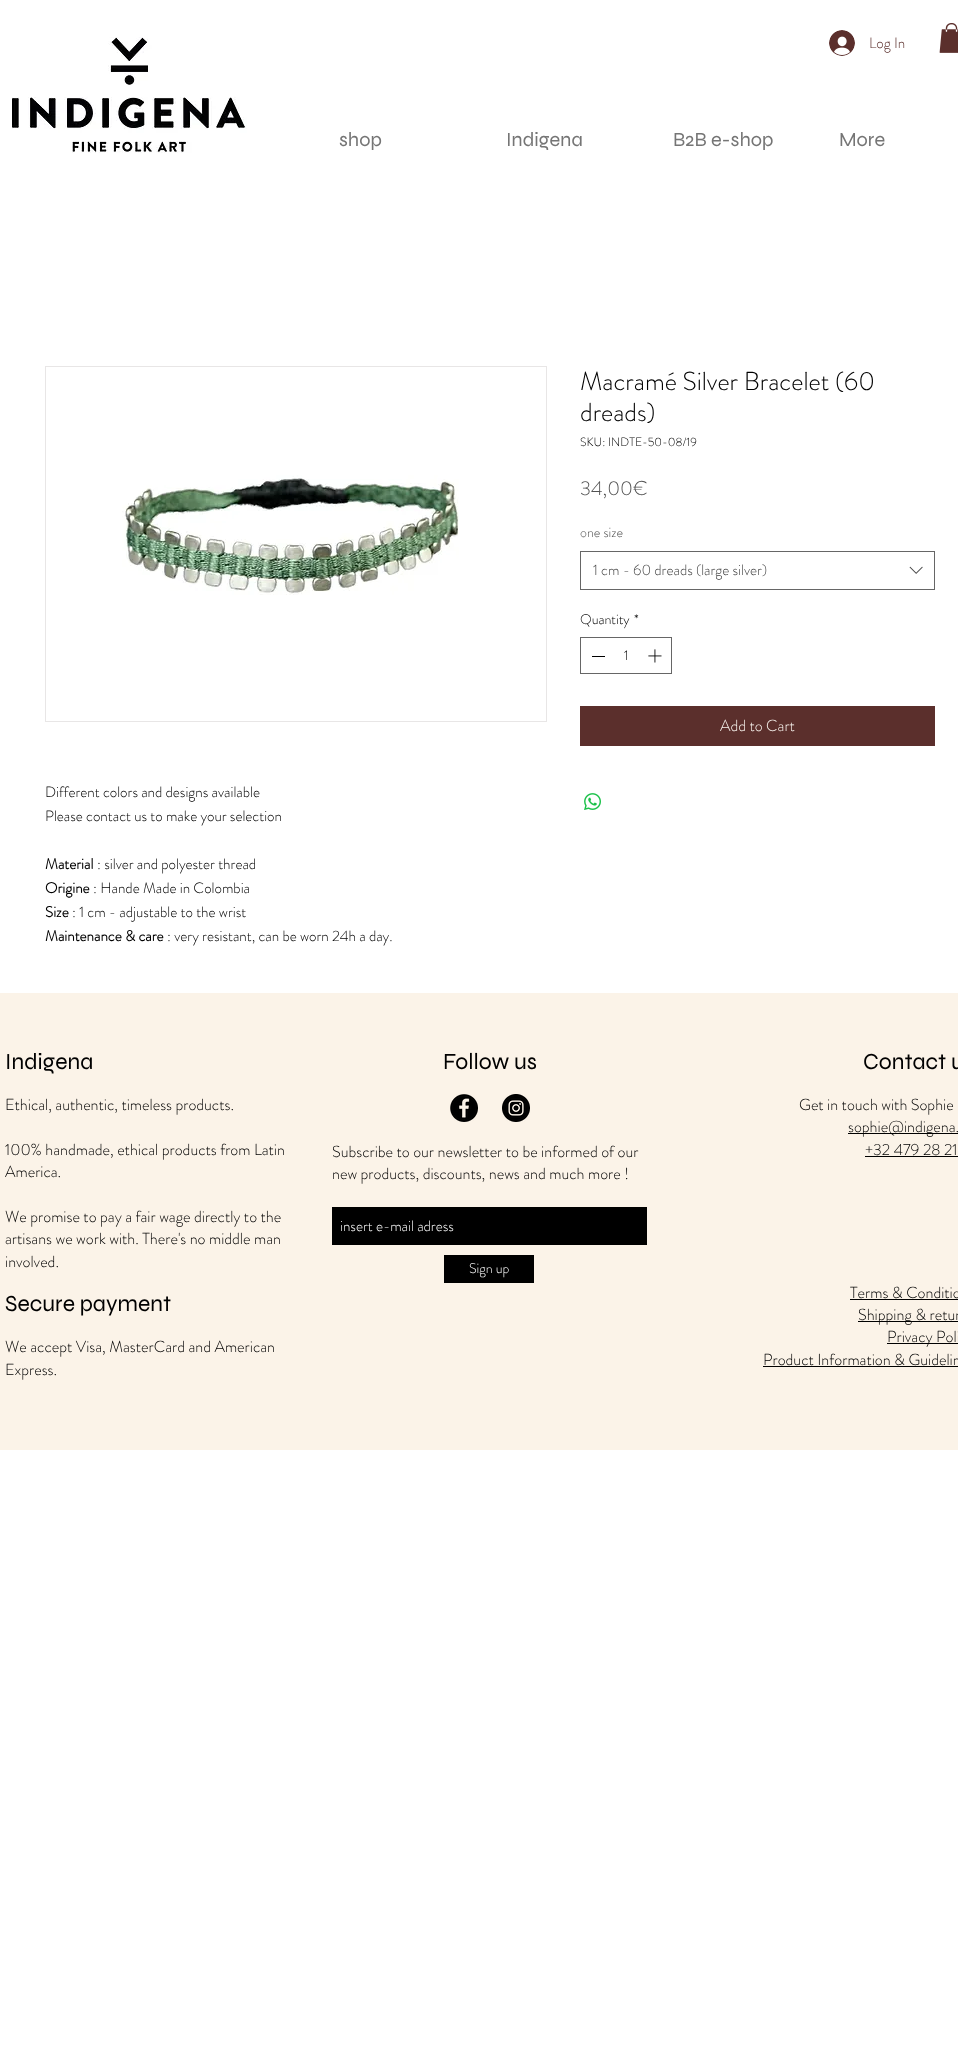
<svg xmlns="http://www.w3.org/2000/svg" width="958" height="2052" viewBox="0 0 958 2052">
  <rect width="100%" height="100%" fill="rgb(255,255,255)"/>
  <image x="12" y="37" width="235" height="116" href="pic1.png"/>
  <image x="829" y="30" width="26" height="26" href="pic2.png"/>
  <text x="869" y="48" font-family="'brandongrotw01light'" font-size="15" font-weight="300" fill="rgb(91,47,44)">Log In</text>
  <image x="939" y="23" width="19" height="30" href="pic3.png"/>
  <g font-family="Syne" font-size="20" fill="rgb(117,117,117)">
    <text x="339" y="146">shop</text>
    <text x="506" y="146">Indigena</text>
    <text x="673" y="146">B2B e-shop</text>
    <text x="839" y="146">More</text>
  </g>
  <g font-family="'brandongrotw01light'" font-size="26" font-weight="300" fill="rgb(0,0,0)">
    <text>
      <tspan x="580" y="390">Macramé Silver Bracelet (60</tspan>
      <tspan x="580" y="421">dreads)</tspan>
    </text>
  </g>
  <text x="580" y="446" font-family="'brandongrotw01light'" font-size="12" font-weight="300" fill="rgb(0,0,0)">SKU: INDTE-50-08/19</text>
  <text x="580" y="495" font-family="'brandongrotw01light'" font-size="20" font-weight="300" fill="rgb(82,82,82)">34,00€</text>
  <text x="580" y="537" font-family="'brandongrotw01light'" font-size="14" font-weight="300" fill="rgb(82,82,82)">one size</text>
  <rect x="580.5" y="551.5" width="354" height="38" fill="none" stroke="rgb(102,102,102)"/>
  <text x="593" y="575" font-family="'brandongrotw01light'" font-size="15" font-weight="300" fill="rgb(68,68,68)">1 cm - 60 dreads (large silver)</text>
  <image x="909" y="566" width="14" height="8" href="pic4.png"/>
  <g font-family="'brandongrotw01light'" font-size="14" font-weight="300" fill="rgb(0,0,0)">
    <text x="580" y="624">Quantity</text>
    <text x="634" y="624">*</text>
  </g>
  <rect x="580.5" y="637.5" width="91" height="36" fill="none" stroke="rgb(102,102,102)"/>
  <rect x="592" y="656" width="13" height="1" fill="rgb(0,0,0)"/>
  <text x="624" y="660" font-family="'brandongrotw01light'" font-size="14" font-weight="300" fill="rgb(0,0,0)">1</text>
  <image x="648" y="649" width="14" height="14" href="pic5.png"/>
  <rect x="580" y="706" width="355" height="40" fill="rgb(91,47,44)"/>
  <text x="720" y="731" font-family="'brandongrotw01light'" font-size="16" font-weight="300" fill="rgb(250,246,240)">Add to Cart</text>
  <image x="584" y="793" width="17" height="17" href="pic6.png"/>
  <rect x="45.5" y="366.5" width="501" height="355" fill="none" stroke="rgb(232,230,230)"/>
  <image x="122" y="475" width="337" height="120" href="pic7.png"/>
  <g font-family="'brandongrotw01light'" font-size="15" font-weight="300" fill="rgb(0,0,0)">
    <text>
      <tspan x="45" y="797">Different colors and designs available</tspan>
      <tspan x="45" y="821">Please contact us to make your selection</tspan>
    </text>
  </g>
  <text x="45" y="869" font-family="'brandongrotw01light'" font-size="15" font-weight="bold" fill="rgb(0,0,0)">Material</text>
  <text x="97" y="869" font-family="'brandongrotw01light'" font-size="15" font-weight="300" fill="rgb(0,0,0)">: silver and polyester thread</text>
  <text x="45" y="893" font-family="'brandongrotw01light'" font-size="15" font-weight="bold" fill="rgb(0,0,0)">Origine</text>
  <text x="93" y="893" font-family="'brandongrotw01light'" font-size="15" font-weight="300" fill="rgb(0,0,0)">: Hande Made in Colombia</text>
  <text x="45" y="917" font-family="'brandongrotw01light'" font-size="15" font-weight="bold" fill="rgb(0,0,0)">Size</text>
  <text x="72" y="917" font-family="'brandongrotw01light'" font-size="15" font-weight="300" fill="rgb(0,0,0)">: 1 cm - adjustable to the wrist</text>
  <text x="45" y="941" font-family="'brandongrotw01light'" font-size="15" font-weight="bold" fill="rgb(0,0,0)">Maintenance &amp; care</text>
  <text x="167" y="941" font-family="'brandongrotw01light'" font-size="15" font-weight="300" fill="rgb(0,0,0)">: very resistant, can be worn 24h a day.</text>
  <rect x="0" y="993" width="958" height="457" fill="rgb(251,243,232)"/>
  <text x="5" y="1069" font-family="Syne" font-size="23" fill="rgb(0,0,0)">Indigena</text>
  <g font-family="'brandongrotw01light'" font-size="16" font-weight="300" fill="rgb(0,0,0)">
    <text x="5" y="1110">Ethical, authentic, timeless products.</text>
    <text>
      <tspan x="5" y="1155">100% handmade, ethical products from Latin</tspan>
      <tspan x="5" y="1177">America.</tspan>
    </text>
    <text>
      <tspan x="5" y="1222">We promise to pay a fair wage directly to the</tspan>
      <tspan x="5" y="1244">artisans we work with. There's no middle man</tspan>
      <tspan x="5" y="1267">involved.</tspan>
    </text>
  </g>
  <text x="5" y="1311" font-family="Syne" font-size="23" fill="rgb(0,0,0)">Secure payment</text>
  <g font-family="'brandongrotw01light'" font-size="16" font-weight="300" fill="rgb(0,0,0)">
    <text>
      <tspan x="5" y="1352">We accept Visa, MasterCard and American</tspan>
      <tspan x="5" y="1375">Express.</tspan>
    </text>
  </g>
  <text x="443" y="1069" font-family="Syne" font-size="23" fill="rgb(0,0,0)">Follow us</text>
  <image x="450" y="1094" width="28" height="28" href="pic8.png"/>
  <image x="502" y="1094" width="28" height="28" href="pic9.png"/>
  <g font-family="'brandongrotw01light'" font-size="16" font-weight="300" fill="rgb(0,0,0)">
    <text>
      <tspan x="332" y="1157">Subscribe to our newsletter to be informed of our</tspan>
      <tspan x="332" y="1179">new products, discounts, news and much more !</tspan>
    </text>
  </g>
  <rect x="332" y="1207" width="315" height="38" fill="rgb(0,0,0)"/>
  <text x="340" y="1231" font-family="'brandongrotw01light'" font-size="15" font-weight="300" fill="rgb(255,255,255)">insert e-mail adress</text>
  <rect x="444" y="1255" width="90" height="28" fill="rgb(0,0,0)"/>
  <text x="469" y="1273" font-family="'brandongrotw01light'" font-size="14" font-weight="300" fill="rgb(255,255,255)">Sign up</text>
  <text x="863" y="1069" font-family="Syne" font-size="23" fill="rgb(0,0,0)">Contact u</text>
  <text x="799" y="1110" font-family="'brandongrotw01light'" font-size="16" font-weight="300" fill="rgb(0,0,0)">Get in touch with Sophie</text>
  <rect x="848" y="1133" width="110" height="1" fill="rgb(0,0,0)"/>
  <g font-family="'brandongrotw01light'" font-size="16" font-weight="300" fill="rgb(0,0,0)">
    <text x="848" y="1132">sophie@indigena.</text>
    <text x="865" y="1155">+32 479 28 21</text>
  </g>
  <rect x="865" y="1156" width="93" height="1" fill="rgb(0,0,0)"/>
  <text x="850" y="1298" font-family="'brandongrotw01light'" font-size="16" font-weight="300" fill="rgb(0,0,0)">Terms &amp; Conditio</text>
  <rect x="850" y="1299" width="108" height="1" fill="rgb(0,0,0)"/>
  <rect x="858" y="1321" width="100" height="1" fill="rgb(0,0,0)"/>
  <text x="858" y="1320" font-family="'brandongrotw01light'" font-size="16" font-weight="300" fill="rgb(0,0,0)">Shipping &amp; retur</text>
  <rect x="887" y="1343" width="71" height="1" fill="rgb(0,0,0)"/>
  <g font-family="'brandongrotw01light'" font-size="16" font-weight="300" fill="rgb(0,0,0)">
    <text x="887" y="1342">Privacy Poli</text>
    <text x="763" y="1365">Product Information &amp; Guidelin</text>
  </g>
  <rect x="763" y="1366" width="195" height="1" fill="rgb(0,0,0)"/>
</svg>
